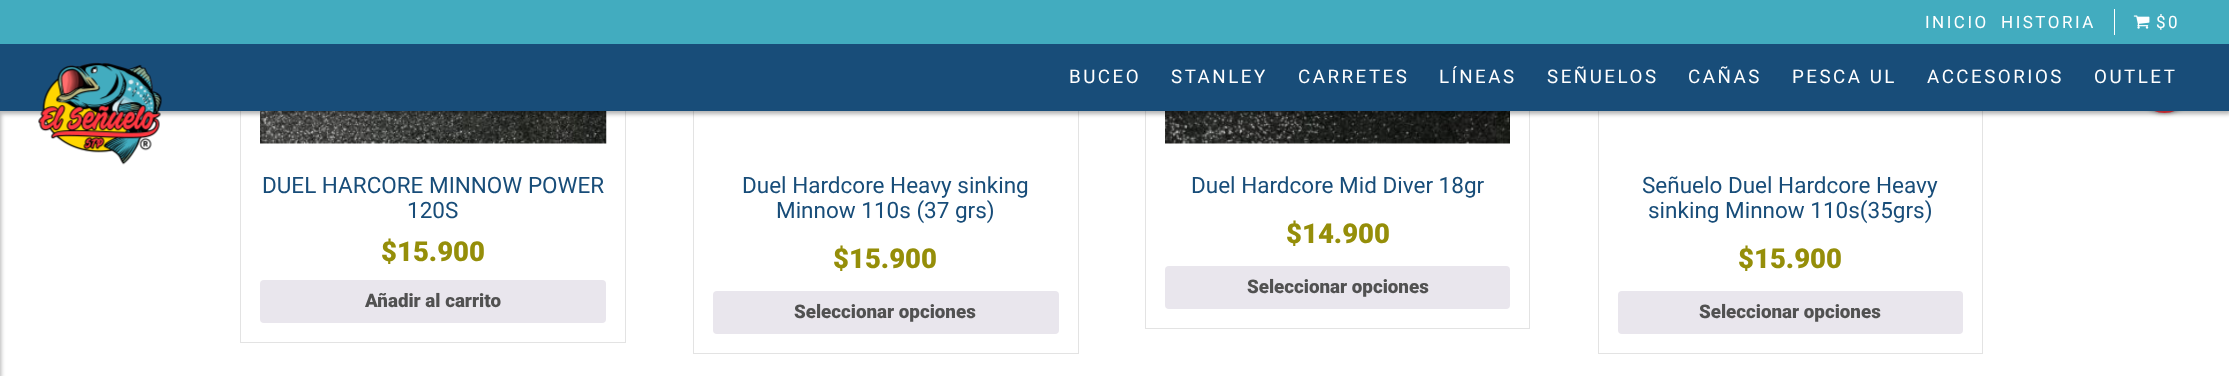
<svg xmlns="http://www.w3.org/2000/svg" width="2229" height="376" viewBox="0 0 2229 376">
  <rect width="100%" height="100%" fill="rgb(255,255,255)"/>
  <rect x="-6" y="3" width="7" height="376" fill="rgba(0,0,0,0.3)" filter="blur(2px)"/>
  <rect x="2136" y="56" width="57" height="57" rx="28.5" fill="rgba(0,0,0,0.5)" filter="blur(2px)"/>
  <circle cx="2164.5" cy="84.5" r="28.5" fill="rgb(250,55,65)"/>
  <rect x="240.5" y="-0.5" width="385" height="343" fill="none" stroke="rgb(227,227,227)"/>
  <image x="260" y="111" width="347" height="33" href="pic3.png"/>
  <rect x="693.5" y="-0.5" width="385" height="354" fill="none" stroke="rgb(227,227,227)"/>
  <rect x="1145.5" y="-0.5" width="384" height="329" fill="none" stroke="rgb(227,227,227)"/>
  <image x="1165" y="111" width="345" height="33" href="pic4.png"/>
  <rect x="1598.5" y="-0.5" width="384" height="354" fill="none" stroke="rgb(227,227,227)"/>
  <rect x="1" y="46" width="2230" height="68" fill="rgba(0,0,0,0.3)" filter="blur(2px)"/>
  <rect x="0" y="0" width="2229" height="44" fill="rgb(66,172,191)"/>
  <g font-family="Roboto" font-size="17" letter-spacing="2.5" fill="rgb(255,255,255)">
    <text x="1925" y="28">INICIO</text>
    <text x="2001" y="28">HISTORIA</text>
  </g>
  <rect x="2114" y="9" width="1" height="26" fill="rgb(255,255,255)"/>
  <image x="2133" y="15" width="17" height="14" href="pic1.png"/>
  <text x="2156" y="28" font-family="Roboto" font-size="17" letter-spacing="2.5" fill="rgb(255,255,255)">$0</text>
  <rect x="0" y="44" width="2229" height="67" fill="rgb(24,77,121)"/>
  <image x="38" y="62" width="124" height="103" href="pic2.png"/>
  <g font-family="Roboto" font-size="18.75" letter-spacing="2.5" fill="rgb(255,255,255)">
    <text x="1069" y="83">BUCEO</text>
    <text x="1171" y="83">STANLEY</text>
    <text x="1298" y="83">CARRETES</text>
    <text x="1439" y="83">LÍNEAS</text>
    <text x="1547" y="83">SEÑUELOS</text>
    <text x="1688" y="83">CAÑAS</text>
    <text x="1792" y="83">PESCA UL</text>
    <text x="1927" y="83">ACCESORIOS</text>
    <text x="2094" y="83">OUTLET</text>
  </g>
  <g font-family="Roboto" font-size="22.5" fill="rgb(24,77,121)">
    <text x="262" y="193">DUEL HARCORE MINNOW POWER</text>
    <text x="407" y="218">120S</text>
  </g>
  <text x="381" y="261" font-family="Roboto" font-size="27.5" font-weight="900" fill="rgb(149,142,9)">$15.900</text>
  <rect x="260" y="280" width="346" height="43" rx="4" fill="rgb(233,230,237)"/>
  <text x="365" y="307" font-family="Roboto" font-size="18.75" font-weight="900" fill="rgb(81,81,81)">Añadir al carrito</text>
  <g font-family="Roboto" font-size="22.5" fill="rgb(24,77,121)">
    <text x="742" y="193">Duel Hardcore Heavy sinking</text>
    <text x="776" y="218">Minnow 110s (37 grs)</text>
  </g>
  <text x="833" y="268" font-family="Roboto" font-size="27.5" font-weight="900" fill="rgb(149,142,9)">$15.900</text>
  <rect x="713" y="291" width="346" height="43" rx="4" fill="rgb(233,230,237)"/>
  <text x="794" y="318" font-family="Roboto" font-size="18.75" font-weight="900" fill="rgb(81,81,81)">Seleccionar opciones</text>
  <text x="1191" y="193" font-family="Roboto" font-size="22.5" fill="rgb(24,77,121)">Duel Hardcore Mid Diver 18gr</text>
  <text x="1286" y="243" font-family="Roboto" font-size="27.5" font-weight="900" fill="rgb(149,142,9)">$14.900</text>
  <rect x="1165" y="266" width="345" height="43" rx="4" fill="rgb(233,230,237)"/>
  <text x="1247" y="293" font-family="Roboto" font-size="18.75" font-weight="900" fill="rgb(81,81,81)">Seleccionar opciones</text>
  <g font-family="Roboto" font-size="22.5" fill="rgb(24,77,121)">
    <text x="1642" y="193">Señuelo Duel Hardcore Heavy</text>
    <text x="1648" y="218">sinking Minnow 110s(35grs)</text>
  </g>
  <text x="1738" y="268" font-family="Roboto" font-size="27.5" font-weight="900" fill="rgb(149,142,9)">$15.900</text>
  <rect x="1618" y="291" width="345" height="43" rx="4" fill="rgb(233,230,237)"/>
  <text x="1699" y="318" font-family="Roboto" font-size="18.75" font-weight="900" fill="rgb(81,81,81)">Seleccionar opciones</text>
</svg>
